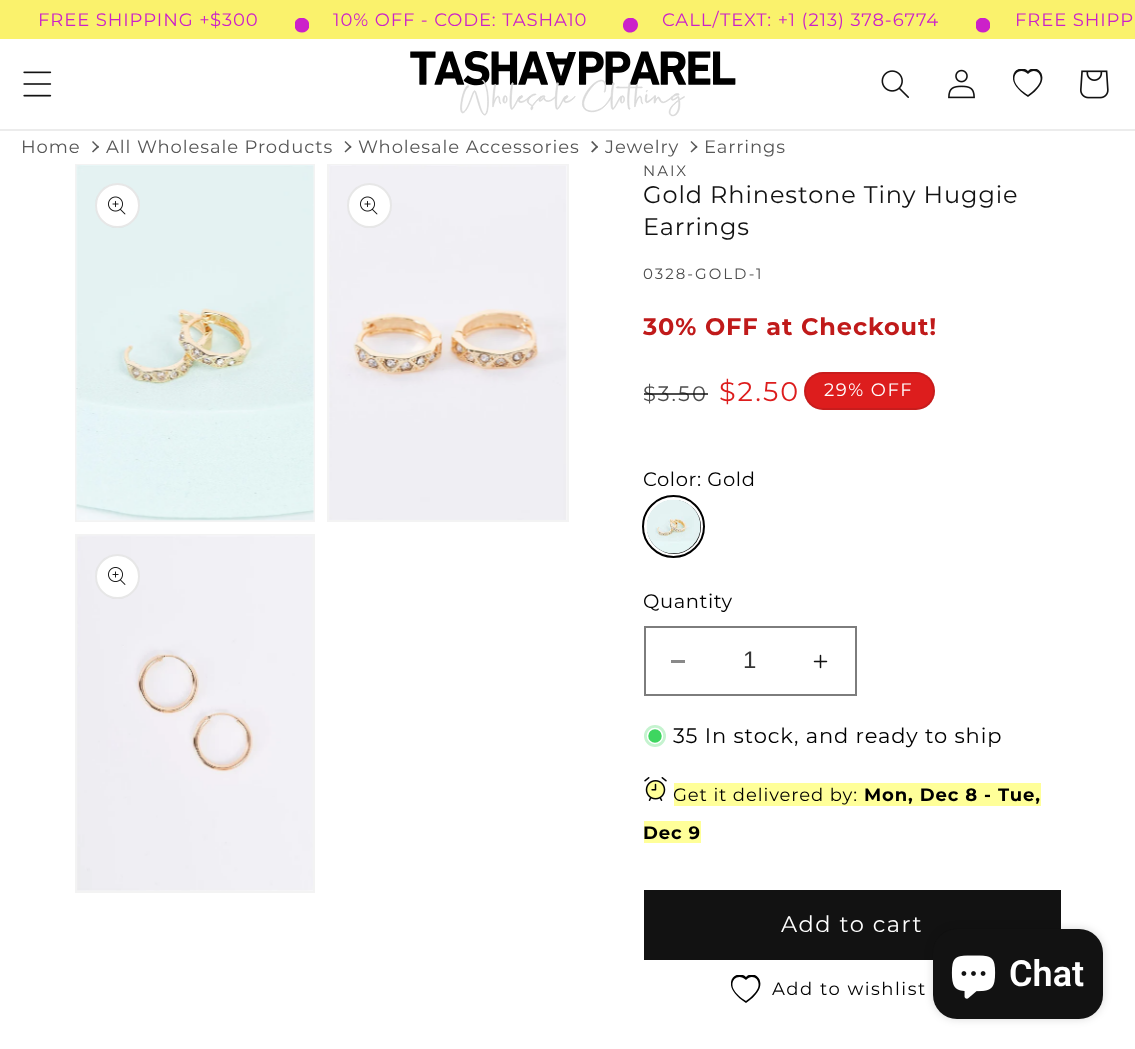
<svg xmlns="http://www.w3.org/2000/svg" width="1135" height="1049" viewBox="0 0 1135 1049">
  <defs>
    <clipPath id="clip1"><rect x="294" y="18" width="15" height="15"/></clipPath>
    <clipPath id="clip2"><rect x="623" y="18" width="15" height="15"/></clipPath>
    <clipPath id="clip3"><rect x="975" y="18" width="15" height="15"/></clipPath>
    <clipPath id="clip4"><rect x="1013" y="69" width="30" height="30"/></clipPath>
    <clipPath id="clip5"><rect x="731" y="975" width="30" height="30"/></clipPath>
  </defs>
  <rect width="100%" height="100%" fill="rgb(255,255,255)"/>
  <rect x="0" y="0" width="1135" height="39" fill="rgb(250,242,108)"/>
  <text x="38" y="26" font-family="Montserrat" font-size="18" letter-spacing="0.9" fill="rgb(204,33,201)">FREE SHIPPING +$300</text>
  <g clip-path="url(#clip1)">
    <path d="M295 22C296 20 297.5 18.5 299.5 18H304C307 19 309.5 22 309.5 25C309.5 29.5 306 32.5 302 32.5C299 32.5 296 31 295 28Z" fill="rgb(204,33,201)"/>
  </g>
  <text x="333" y="26" font-family="Montserrat" font-size="18" letter-spacing="0.9" fill="rgb(204,33,201)">10% OFF - CODE: TASHA10</text>
  <g clip-path="url(#clip2)">
    <path d="M623 24C624.5 15 638 16 638 25C637.5 34 624.5 35.5 623 26.5Z" fill="rgb(204,33,201)"/>
  </g>
  <text x="662" y="26" font-family="Montserrat" font-size="18" letter-spacing="0.9" fill="rgb(204,33,201)">CALL/TEXT: +1 (213) 378-6774</text>
  <g clip-path="url(#clip3)">
    <path d="M976 22C977 20 978.5 18.5 980.5 18H985C988 19 990.5 22 990.5 25C990.5 29.5 987 32.5 983 32.5C980 32.5 977 31 976 28Z" fill="rgb(204,33,201)"/>
  </g>
  <text x="1015" y="26" font-family="Montserrat" font-size="18" letter-spacing="0.9" fill="rgb(204,33,201)">FREE SHIPP</text>
  <rect x="0" y="129" width="1135" height="2" fill="rgb(236,236,236)"/>
  <image x="23" y="71" width="29" height="26" href="pic1.png"/>
  <image x="410" y="51" width="326" height="66" href="pic2.png"/>
  <image x="881" y="70" width="28" height="28" href="pic3.png"/>
  <image x="948" y="69" width="27" height="30" href="pic4.png"/>
  <g clip-path="url(#clip4)">
    <path d="M1028 74C1021 67 1012 73 1015 82C1017 87 1023 92 1028 95C1032 92 1038 87 1040 82C1043 73 1034 67 1028 74ZM1028 97C999 78 1019 62 1028 71C1036 62 1056 78 1028 97Z" fill="rgb(18,18,18)"/>
  </g>
  <image x="1080" y="70" width="29" height="29" href="pic5.png"/>
  <text x="21" y="153" font-family="Montserrat" font-size="18" letter-spacing="0.9" fill="rgb(86,86,86)">Home</text>
  <path d="M93 141L99 147L98 148L92 142Z" fill="rgb(86,86,86)"/>
  <path d="M98 145.5L99 147L93 152.5L92 151.5Z" fill="rgb(86,86,86)"/>
  <text x="106" y="153" font-family="Montserrat" font-size="18" letter-spacing="0.9" fill="rgb(86,86,86)">All Wholesale Products</text>
  <path d="M345.5 141L351.5 147L350.5 148L344.5 142Z" fill="rgb(86,86,86)"/>
  <path d="M350.5 145.5L351.5 147L345.5 152.5L344.5 151.5Z" fill="rgb(86,86,86)"/>
  <text x="358" y="153" font-family="Montserrat" font-size="18" letter-spacing="0.9" fill="rgb(86,86,86)">Wholesale Accessories</text>
  <path d="M592.5 141L598 147L597 148L591 142Z" fill="rgb(86,86,86)"/>
  <path d="M597 145.5L598 147L592.5 152.5L591 151.5Z" fill="rgb(86,86,86)"/>
  <text x="605" y="153" font-family="Montserrat" font-size="18" letter-spacing="0.9" fill="rgb(86,86,86)">Jewelry</text>
  <path d="M691.5 141L697.5 147L696.5 148L690.5 142Z" fill="rgb(86,86,86)"/>
  <path d="M696.5 145.5L697.5 147L691.5 152.5L690.5 151.5Z" fill="rgb(86,86,86)"/>
  <text x="704" y="153" font-family="Montserrat" font-size="18" letter-spacing="0.9" fill="rgb(86,86,86)">Earrings</text>
  <rect x="76" y="165" width="238" height="356" fill="none" stroke="rgb(243,243,243)" stroke-width="2"/>
  <image x="76" y="165" width="238" height="356" href="pic6.png"/>
  <circle cx="117.5" cy="205.5" r="22.5" fill="rgb(255,255,255)"/>
  <circle cx="117.5" cy="205.5" r="21.5" fill="none" stroke="rgba(18,18,18,0.1)" stroke-width="2"/>
  <image x="108" y="196" width="18" height="19" href="pic7.png"/>
  <rect x="328" y="165" width="240" height="356" fill="none" stroke="rgb(243,243,243)" stroke-width="2"/>
  <image x="329" y="165" width="238" height="355" href="pic8.png"/>
  <circle cx="369.5" cy="205.5" r="22.5" fill="rgb(255,255,255)"/>
  <circle cx="369.5" cy="205.5" r="21.5" fill="none" stroke="rgba(18,18,18,0.1)" stroke-width="2"/>
  <image x="360" y="196" width="18" height="19" href="pic7.png"/>
  <rect x="76" y="535" width="238" height="357" fill="none" stroke="rgb(243,243,243)" stroke-width="2"/>
  <image x="77" y="535" width="236" height="356" href="pic9.png"/>
  <circle cx="117.5" cy="576.5" r="22.5" fill="rgb(255,255,255)"/>
  <circle cx="117.5" cy="576.5" r="21.5" fill="none" stroke="rgba(18,18,18,0.1)" stroke-width="2"/>
  <image x="108" y="567" width="18" height="18" href="pic10.png"/>
  <text x="643" y="176" font-family="Montserrat" font-size="15" letter-spacing="2" fill="rgb(77,77,77)">NAIX</text>
  <g font-family="Montserrat" font-size="24" letter-spacing="0.9" fill="rgb(18,18,18)">
    <text>
      <tspan x="643" y="203">Gold Rhinestone Tiny Huggie</tspan>
      <tspan x="643" y="235">Earrings</tspan>
    </text>
  </g>
  <text x="643" y="279" font-family="Montserrat" font-size="15" letter-spacing="2" fill="rgb(77,77,77)">0328-GOLD-1</text>
  <text x="643" y="335" font-family="Montserrat" font-size="24" font-weight="bold" letter-spacing="0.9" fill="rgb(192,26,26)">30% OFF at Checkout!</text>
  <text x="643" y="401" font-family="Montserrat" font-size="21" letter-spacing="2" fill="rgb(77,77,77)">$3.50</text>
  <rect x="644" y="393" width="64" height="2" fill="rgba(18,18,18,0.75)"/>
  <text x="719" y="401" font-family="Montserrat" font-size="27" letter-spacing="2" fill="rgb(221,29,29)">$2.50</text>
  <rect x="804" y="372" width="131" height="38" rx="19" fill="rgb(221,29,29)"/>
  <rect x="805" y="373" width="129" height="36" rx="18" fill="none" stroke="rgba(18,18,18,0.1)" stroke-width="2"/>
  <text x="824" y="396" font-family="Montserrat" font-size="18" letter-spacing="1.5" fill="rgb(255,255,255)">29% OFF</text>
  <text x="643" y="486" font-family="Montserrat" font-size="19.5" letter-spacing="0.6" fill="rgb(0,0,0)">Color: Gold</text>
  <circle cx="674" cy="527" r="28.5" fill="rgb(18,18,18)" stroke="rgb(255,255,255)" stroke-width="3"/>
  <image x="646" y="499" width="55" height="55" href="pic11.png"/>
  <circle cx="673.5" cy="526.5" r="30.5" fill="none" stroke="rgb(0,0,0)" stroke-width="2"/>
  <text x="643" y="608" font-family="Montserrat" font-size="19.5" letter-spacing="0.6" fill="rgb(0,0,0)">Quantity</text>
  <rect x="671" y="660" width="14" height="3" fill="rgb(137,137,137)"/>
  <image x="813" y="654" width="15" height="15" href="pic12.png"/>
  <rect x="645" y="627" width="211" height="68" fill="none" stroke="rgb(125,125,125)" stroke-width="2"/>
  <text x="743" y="668" font-family="Liberation Sans" font-size="24" fill="rgb(54,54,54)">1</text>
  <circle cx="655" cy="736" r="11" fill="rgb(197,243,207)"/>
  <circle cx="655" cy="736" r="7.5" fill="rgb(62,214,96)" stroke="rgb(255,255,255)" stroke-width="1.5"/>
  <text x="673" y="743" font-family="Montserrat" font-size="21" letter-spacing="0.9" fill="rgb(0,0,0)">35 In stock, and ready to ship</text>
  <image x="644" y="777" width="23" height="24" href="pic13.png"/>
  <rect x="674" y="783" width="367" height="23" fill="rgb(255,255,153)"/>
  <text x="673" y="801" font-family="Montserrat" font-size="18" letter-spacing="0.9" fill="rgb(0,0,0)">Get it delivered by:</text>
  <text x="864" y="801" font-family="Montserrat" font-size="18" font-weight="bold" letter-spacing="0.9" fill="rgb(0,0,0)">Mon, Dec 8 - Tue,</text>
  <rect x="644" y="821" width="57" height="22" fill="rgb(255,255,153)"/>
  <text x="643" y="839" font-family="Montserrat" font-size="18" font-weight="bold" letter-spacing="0.9" fill="rgb(0,0,0)">Dec 9</text>
  <rect x="644" y="890" width="417" height="70" fill="rgb(18,18,18)"/>
  <text x="781" y="932" font-family="Montserrat" font-size="22.5" letter-spacing="1.5" fill="rgb(255,255,255)">Add to cart</text>
  <g clip-path="url(#clip5)">
    <path d="M746 980C739 973 730 979 733 988C735 993 741 998 746 1001C750 998 756 993 758 988C761 979 752 973 746 980ZM746 1003C717 984 737 968 746 977C754 968 774 984 746 1003Z" fill="rgb(0,0,0)"/>
  </g>
  <text x="772" y="995" font-family="Montserrat" font-size="18" letter-spacing="1.5" fill="rgb(0,0,0)">Add to wishlist</text>
  <rect x="933" y="929" width="170" height="90" rx="24" fill="rgba(0,0,0,0.15)" filter="blur(4px)"/>
  <rect x="933" y="929" width="170" height="90" rx="24" fill="rgb(18,18,18)"/>
  <image x="951" y="955" width="45" height="44" href="pic14.png"/>
  <text x="1009" y="986" font-family="Roboto" font-size="36" font-weight="600" fill="rgb(255,255,255)">Chat</text>
</svg>
